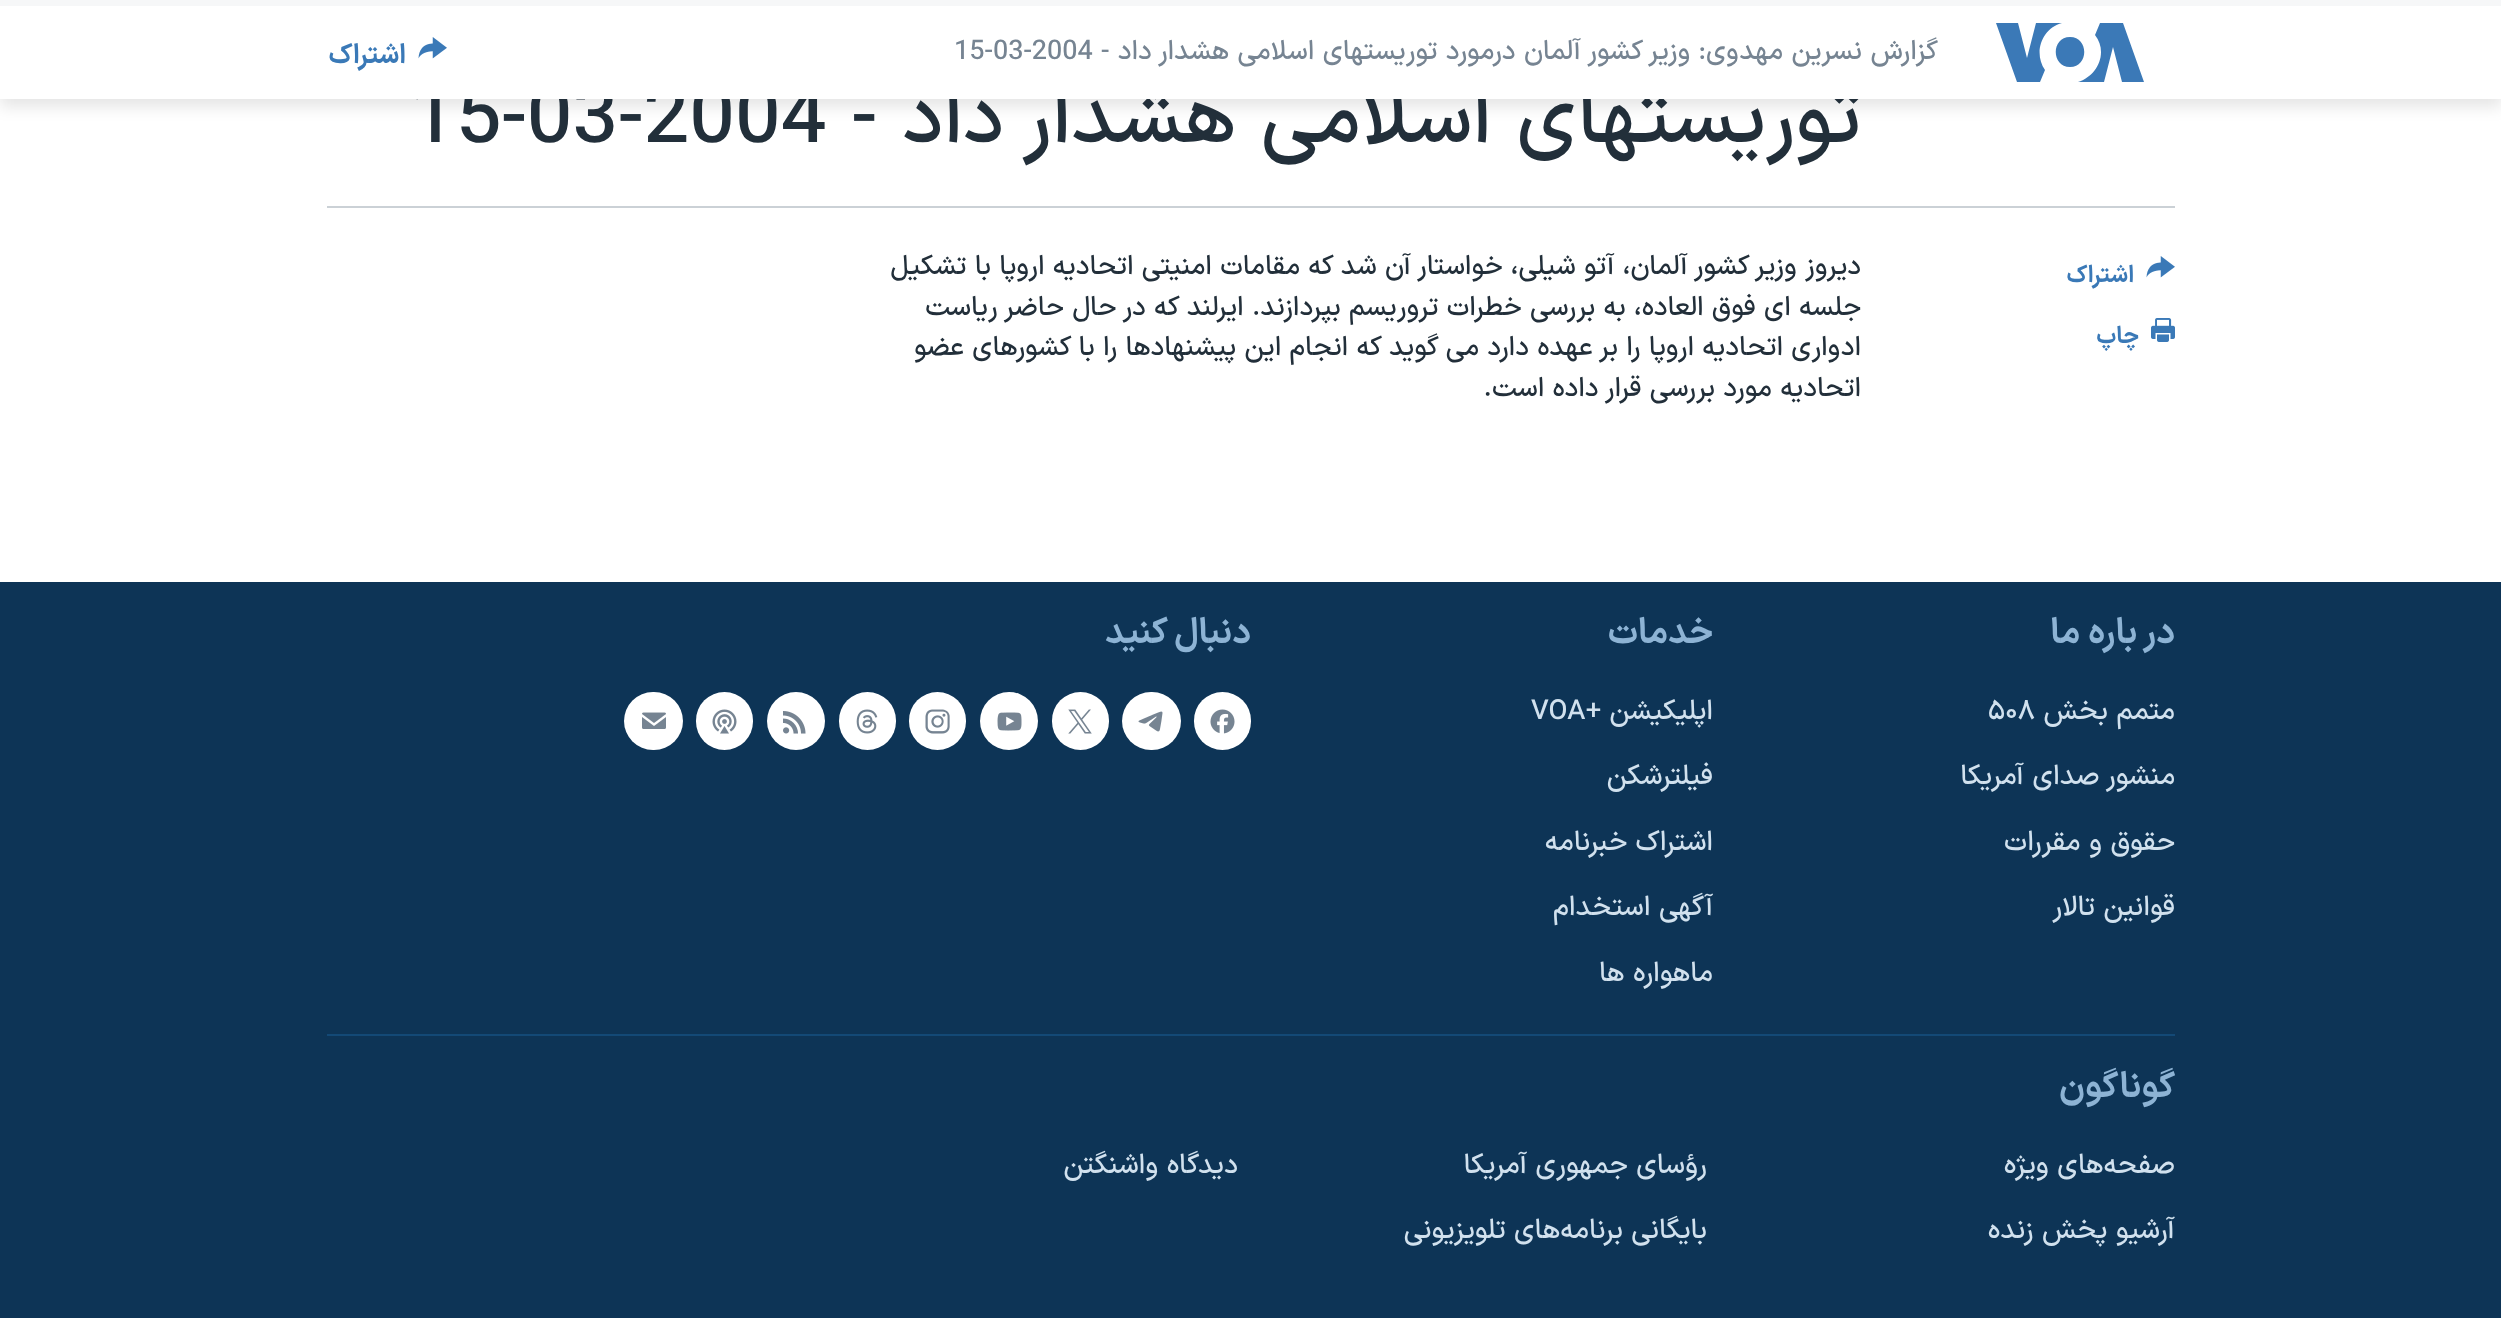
<svg xmlns="http://www.w3.org/2000/svg" width="2501" height="1318" viewBox="0 0 2501 1318">
  <rect width="100%" height="100%" fill="rgb(255,255,255)"/>
  <rect x="0" y="8" width="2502" height="99" fill="rgba(0,0,0,0.1)" filter="blur(7.5px)"/>
  <text x="1861" y="142" font-family="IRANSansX" font-size="81" font-weight="500" direction="rtl" fill="rgb(34,47,58)">توريستهای اسلامی هشدار داد -</text>
  <text x="410" y="142" font-family="IRANSansX" font-size="81" font-weight="500" fill="rgb(34,47,58)">15-03-2004</text>
  <rect x="0" y="6" width="2501" height="93" fill="rgb(255,255,255)"/>
  <rect x="0" y="0" width="2501" height="6" fill="rgb(246,247,248)"/>
  <path d="M2045 70L2040 82H2017L1996 23H2018L2027 58L2036 23H2062C2042 28 2033 53 2045 70ZM2070 37C2051 37 2051 67 2070 67C2089 67 2089 37 2070 37ZM2101 52C2101 66 2091 78 2078 82H2104L2113 47L2122 82H2144L2123 23H2100L2095 35C2099 40 2101 46 2101 52Z" fill="rgb(59,121,183)"/>
  <text x="1938" y="59" font-family="IRANSansX" font-size="27" font-weight="500" direction="rtl" fill="rgb(118,132,146)">گزارش نسرين مهدوی: وزير کشور آلمان درمورد توريستهای اسلامی هشدار داد -</text>
  <text x="954" y="59" font-family="IRANSansX" font-size="27" font-weight="500" fill="rgb(118,132,146)">15-03-2004</text>
  <image x="418" y="37" width="29" height="22" href="pic1.png"/>
  <text x="406" y="63" font-family="IRANSansX" font-size="27" font-weight="bold" direction="rtl" fill="rgb(58,121,183)">اشتراک</text>
  <rect x="327" y="206" width="1848" height="2" fill="rgb(203,209,214)"/>
  <image x="2146" y="256" width="29" height="22" href="pic1.png"/>
  <text x="2134" y="282" font-family="IRANSansX" font-size="23.5" font-weight="bold" direction="rtl" fill="rgb(58,121,183)">اشتراک</text>
  <image x="2151" y="318" width="24" height="24" href="pic2.png"/>
  <text x="2139" y="343" font-family="IRANSansX" font-size="23.5" font-weight="bold" direction="rtl" fill="rgb(58,121,183)">چاپ</text>
  <g font-family="IRANSansX" font-size="27" font-weight="500" direction="rtl" fill="rgb(34,47,58)">
    <text>
      <tspan x="1861" y="274">ديروز وزير کشور آلمان، آتو شيلی، خواستار آن شد که مقامات امنيتی اتحاديه اروپا با تشکيل</tspan>
      <tspan x="1861" y="315">جلسه ای فوق العاده، به بررسی خطرات تروريسم بپردازند. ايرلند که در حال حاضر رياست</tspan>
      <tspan x="1861" y="355">ادواری اتحاديه اروپا را بر عهده دارد می گويد که انجام اين پيشنهادها را با کشورهای عضو</tspan>
      <tspan x="1861" y="396">اتحاديه مورد بررسی قرار داده است.</tspan>
    </text>
  </g>
  <rect x="0" y="582" width="2501" height="736" fill="rgb(13,52,86)"/>
  <text x="2175" y="643" font-family="IRANSansX" font-size="35.5" font-weight="bold" direction="rtl" fill="rgb(141,179,212)">در باره ما</text>
  <text x="2175" y="719" font-family="IRANSansX" font-size="27.6" font-weight="500" direction="rtl" fill="rgb(209,225,238)">متمم بخش</text>
  <text x="1988" y="719" font-family="IRANSansX" font-size="27.6" font-weight="500" fill="rgb(209,225,238)">۵۰۸</text>
  <g font-family="IRANSansX" font-size="27.6" font-weight="500" direction="rtl" fill="rgb(209,225,238)">
    <text x="2175" y="784">منشور صدای آمریکا</text>
    <text x="2175" y="850">حقوق و مقررات</text>
    <text x="2175" y="915">قوانین تالار</text>
  </g>
  <text x="1713" y="643" font-family="IRANSansX" font-size="35.5" font-weight="bold" direction="rtl" fill="rgb(141,179,212)">خدمات</text>
  <text x="1713" y="719" font-family="IRANSansX" font-size="27.6" font-weight="500" direction="rtl" fill="rgb(209,225,238)">اپلیکیشن +</text>
  <text x="1531" y="719" font-family="IRANSansX" font-size="27.6" font-weight="500" fill="rgb(209,225,238)">VOA</text>
  <g font-family="IRANSansX" font-size="27.6" font-weight="500" direction="rtl" fill="rgb(209,225,238)">
    <text x="1713" y="784">فیلترشکن</text>
    <text x="1713" y="850">اشتراک خبرنامه</text>
    <text x="1713" y="915">آگهی استخدام</text>
    <text x="1713" y="981">ماهواره ها</text>
  </g>
  <text x="1251" y="643" font-family="IRANSansX" font-size="35.5" font-weight="bold" direction="rtl" fill="rgb(141,179,212)">دنبال کنید</text>
  <rect x="1194" y="692" width="57" height="58" rx="28.5" fill="rgb(255,255,255)"/>
  <image x="1210" y="709" width="25" height="25" href="pic3.png"/>
  <rect x="1122" y="692" width="59" height="58" rx="29" fill="rgb(255,255,255)"/>
  <image x="1138" y="711" width="25" height="21" href="pic4.png"/>
  <rect x="1052" y="692" width="57" height="58" rx="28.5" fill="rgb(255,255,255)"/>
  <image x="1068" y="709" width="24" height="25" href="pic5.png"/>
  <circle cx="1009" cy="721" r="29" fill="rgb(255,255,255)"/>
  <image x="997" y="712" width="25" height="19" href="pic6.png"/>
  <rect x="909" y="692" width="57" height="58" rx="28.5" fill="rgb(255,255,255)"/>
  <image x="925" y="709" width="25" height="25" href="pic7.png"/>
  <rect x="839" y="692" width="57" height="58" rx="28.5" fill="rgb(255,255,255)"/>
  <image x="856" y="709" width="22" height="25" href="pic8.png"/>
  <circle cx="796" cy="721" r="29" fill="rgb(255,255,255)"/>
  <image x="783" y="711" width="23" height="23" href="pic9.png"/>
  <rect x="696" y="692" width="57" height="58" rx="28.5" fill="rgb(255,255,255)"/>
  <image x="712" y="709" width="25" height="25" href="pic10.png"/>
  <rect x="624" y="692" width="59" height="58" rx="29" fill="rgb(255,255,255)"/>
  <image x="642" y="712" width="24" height="17" href="pic11.png"/>
  <rect x="327" y="1034" width="1848" height="2" fill="rgb(19,73,118)"/>
  <text x="2175" y="1097" font-family="IRANSansX" font-size="35.5" font-weight="bold" direction="rtl" fill="rgb(141,179,212)">گوناگون</text>
  <g font-family="IRANSansX" font-size="27.6" font-weight="500" direction="rtl" fill="rgb(209,225,238)">
    <text x="2175" y="1173">صفحه‌های ویژه</text>
    <text x="1707" y="1173">رؤسای جمهوری آمریکا</text>
    <text x="1238" y="1173">دیدگاه‌ واشنگتن</text>
    <text x="2175" y="1238">آرشیو پخش زنده</text>
    <text x="1707" y="1238">بایگانی برنامه‌های تلویزیونی</text>
  </g>
</svg>
